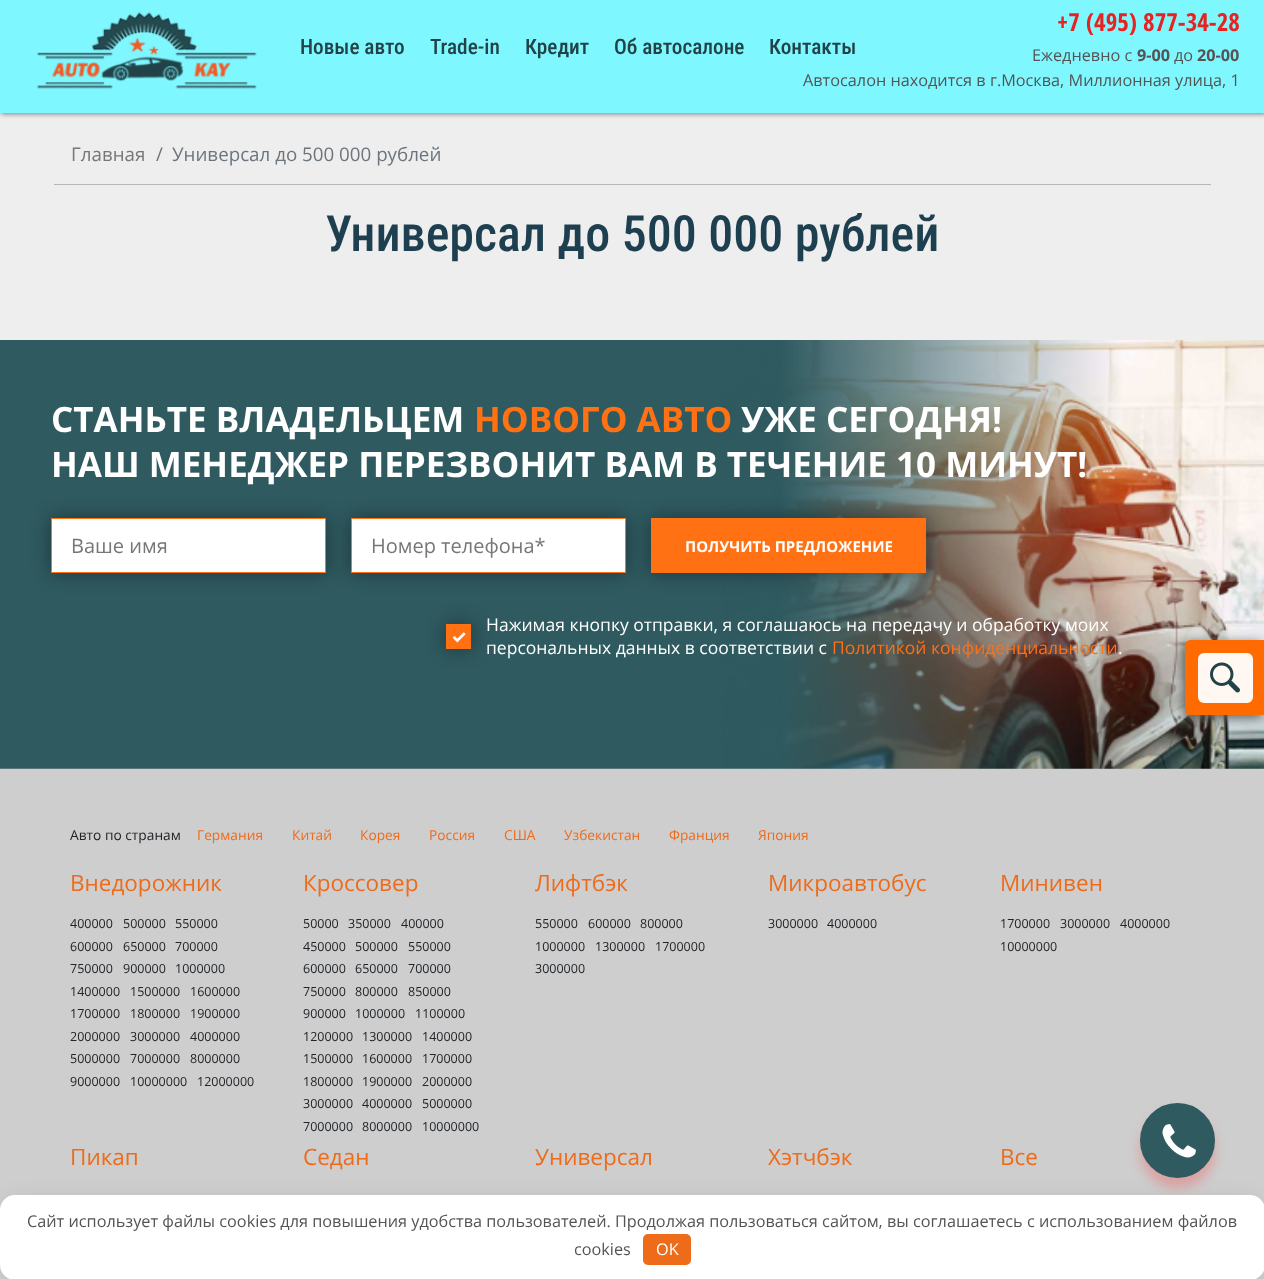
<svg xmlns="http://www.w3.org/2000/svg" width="1264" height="1279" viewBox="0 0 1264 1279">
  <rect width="100%" height="100%" fill="rgb(238,238,238)"/>
  <rect x="1" y="1" width="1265" height="113" fill="rgb(125,125,125)" filter="blur(2.5px)"/>
  <rect x="0" y="0" width="1264" height="113" fill="rgb(127,247,255)"/>
  <image x="36" y="11" width="221" height="78" href="pic1.png"/>
  <g font-family="Roboto Condensed" font-size="21.25" font-weight="500" fill="rgb(33,67,72)">
    <text x="300" y="54">Новые авто</text>
    <text x="430" y="54">Trade-in</text>
    <text x="525" y="54">Кредит</text>
    <text x="614" y="54">Об автосалоне</text>
    <text x="769" y="54">Контакты</text>
  </g>
  <text x="1057" y="31" font-family="Open Sans Condensed" font-size="25" font-weight="bold" fill="rgb(232,33,33)">+7 (495) 877-34-28</text>
  <text x="1032" y="61" font-family="Open Sans" font-size="16.25" fill="rgb(84,84,84)">Ежедневно с</text>
  <text x="1137" y="61" font-family="Open Sans" font-size="16.25" font-weight="bold" fill="rgb(84,84,84)">9-00</text>
  <text x="1174" y="61" font-family="Open Sans" font-size="16.25" fill="rgb(84,84,84)">до</text>
  <text x="1197" y="61" font-family="Open Sans" font-size="16.25" font-weight="bold" fill="rgb(84,84,84)">20-00</text>
  <text x="803" y="86" font-family="Open Sans" font-size="16.25" fill="rgb(84,84,84)">Автосалон находится в г.Москва, Миллионная улица, 1</text>
  <rect x="0" y="768" width="1264" height="511" fill="rgb(206,206,206)"/>
  <image x="0" y="340" width="1264" height="429" href="pic4.png"/>
  <rect x="1183" y="643" width="80" height="75" rx="6" fill="rgb(96,96,96)" filter="blur(5.5px)"/>
  <path d="M1191 640H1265V715H1191C1187.5 715 1185 712.5 1185 709V646C1185 642.5 1187.5 640 1191 640Z" fill="rgb(255,107,0)"/>
  <rect x="1198" y="653" width="55" height="50" rx="6" fill="rgb(255,248,242)"/>
  <image x="1210" y="662" width="30" height="31" href="pic2.png"/>
  <rect x="1140" y="1113" width="75" height="75" rx="37.5" fill="rgba(253,56,56,0.3)" filter="blur(6px)"/>
  <circle cx="1177.5" cy="1140.5" r="36" fill="rgb(46,90,96)" stroke="rgb(46,90,96)" stroke-width="3"/>
  <image x="1162" y="1124" width="34" height="34" href="pic3.png"/>
  <rect x="54" y="184" width="1157" height="1" fill="rgb(182,182,182)"/>
  <text x="71" y="161" font-family="Open Sans" font-size="18.75" fill="rgb(119,119,119)">Главная</text>
  <g font-family="Open Sans" font-size="18.75" fill="rgb(108,117,125)">
    <text x="156" y="161">/</text>
    <text x="172" y="161">Универсал до 500 000 рублей</text>
  </g>
  <text x="325" y="251" font-family="Roboto Condensed" font-size="50" font-weight="500" fill="rgb(29,63,79)">Универсал до 500 000 рублей</text>
  <text x="51" y="432" font-family="Open Sans" font-size="35" font-weight="bold" fill="rgb(255,255,255)">СТАНЬТЕ ВЛАДЕЛЬЦЕМ</text>
  <text x="474" y="432" font-family="Open Sans" font-size="35" font-weight="bold" fill="rgb(255,113,18)">НОВОГО АВТО</text>
  <g font-family="Open Sans" font-size="35" font-weight="bold" fill="rgb(255,255,255)">
    <text x="741" y="432">УЖЕ СЕГОДНЯ!</text>
    <text x="51" y="477">НАШ МЕНЕДЖЕР ПЕРЕЗВОНИТ ВАМ В ТЕЧЕНИЕ 10 МИНУТ!</text>
  </g>
  <rect x="51" y="518" width="275" height="55" fill="rgba(0,0,0,0.4)" filter="blur(9.5px)"/>
  <rect x="51.5" y="518.5" width="274" height="54" fill="rgb(255,255,255)" stroke="rgb(255,113,18)"/>
  <text x="71" y="553" font-family="Open Sans" font-size="20" fill="rgb(119,119,119)">Ваше имя</text>
  <rect x="351" y="518" width="275" height="55" fill="rgba(0,0,0,0.4)" filter="blur(9.5px)"/>
  <rect x="351.5" y="518.5" width="274" height="54" fill="rgb(255,255,255)" stroke="rgb(255,113,18)"/>
  <text x="371" y="553" font-family="Open Sans" font-size="20" fill="rgb(119,119,119)">Номер телефона*</text>
  <rect x="651" y="518" width="275" height="55" fill="rgba(0,0,0,0.4)" filter="blur(9.5px)"/>
  <rect x="651" y="518" width="275" height="55" fill="rgb(255,113,18)"/>
  <text x="685" y="552" font-family="Open Sans" font-size="15" font-weight="bold" fill="rgb(255,255,255)">ПОЛУЧИТЬ ПРЕДЛОЖЕНИЕ</text>
  <rect x="446" y="624" width="25" height="25" fill="rgba(0,0,0,0.4)" filter="blur(9.5px)"/>
  <rect x="446" y="624" width="25" height="25" fill="rgb(255,113,18)"/>
  <image x="452" y="632" width="14" height="11" href="pic5.png"/>
  <g font-family="Open Sans" font-size="17.5" fill="rgb(255,255,255)">
    <text>
      <tspan x="486" y="631">Нажимая кнопку отправки, я соглашаюсь на передачу и обработку моих</tspan>
      <tspan x="486" y="654">персональных данных в соответствии с</tspan>
    </text>
  </g>
  <text x="832" y="654" font-family="Open Sans" font-size="17.5" fill="rgb(255,113,18)">Политикой конфиденциальности</text>
  <text x="1118" y="654" font-family="Open Sans" font-size="17.5" fill="rgb(255,255,255)">.</text>
  <text x="70" y="840" font-family="Open Sans" font-size="13.75" fill="rgb(33,37,41)">Авто по странам</text>
  <g font-family="Open Sans" font-size="13.75" fill="rgb(238,107,26)">
    <text x="197" y="840">Германия</text>
    <text x="292" y="840">Китай</text>
    <text x="360" y="840">Корея</text>
    <text x="429" y="840">Россия</text>
    <text x="504" y="840">США</text>
    <text x="564" y="840">Узбекистан</text>
    <text x="669" y="840">Франция</text>
    <text x="758" y="840">Япония</text>
  </g>
  <text x="70" y="891" font-family="Open Sans" font-size="22.5" fill="rgb(238,107,26)">Внедорожник</text>
  <g font-family="Open Sans" font-size="12.5" fill="rgb(33,37,41)">
    <text x="70" y="928">400000</text>
    <text x="123" y="928">500000</text>
    <text x="175" y="928">550000</text>
    <text x="70" y="951">600000</text>
    <text x="123" y="951">650000</text>
    <text x="175" y="951">700000</text>
    <text x="70" y="973">750000</text>
    <text x="123" y="973">900000</text>
    <text x="175" y="973">1000000</text>
    <text x="70" y="996">1400000</text>
    <text x="130" y="996">1500000</text>
    <text x="190" y="996">1600000</text>
    <text x="70" y="1018">1700000</text>
    <text x="130" y="1018">1800000</text>
    <text x="190" y="1018">1900000</text>
    <text x="70" y="1041">2000000</text>
    <text x="130" y="1041">3000000</text>
    <text x="190" y="1041">4000000</text>
    <text x="70" y="1063">5000000</text>
    <text x="130" y="1063">7000000</text>
    <text x="190" y="1063">8000000</text>
    <text x="70" y="1086">9000000</text>
    <text x="130" y="1086">10000000</text>
    <text x="197" y="1086">12000000</text>
  </g>
  <text x="303" y="891" font-family="Open Sans" font-size="22.5" fill="rgb(238,107,26)">Кроссовер</text>
  <g font-family="Open Sans" font-size="12.5" fill="rgb(33,37,41)">
    <text x="303" y="928">50000</text>
    <text x="348" y="928">350000</text>
    <text x="401" y="928">400000</text>
    <text x="303" y="951">450000</text>
    <text x="355" y="951">500000</text>
    <text x="408" y="951">550000</text>
    <text x="303" y="973">600000</text>
    <text x="355" y="973">650000</text>
    <text x="408" y="973">700000</text>
    <text x="303" y="996">750000</text>
    <text x="355" y="996">800000</text>
    <text x="408" y="996">850000</text>
    <text x="303" y="1018">900000</text>
    <text x="355" y="1018">1000000</text>
    <text x="415" y="1018">1100000</text>
    <text x="303" y="1041">1200000</text>
    <text x="362" y="1041">1300000</text>
    <text x="422" y="1041">1400000</text>
    <text x="303" y="1063">1500000</text>
    <text x="362" y="1063">1600000</text>
    <text x="422" y="1063">1700000</text>
    <text x="303" y="1086">1800000</text>
    <text x="362" y="1086">1900000</text>
    <text x="422" y="1086">2000000</text>
    <text x="303" y="1108">3000000</text>
    <text x="362" y="1108">4000000</text>
    <text x="422" y="1108">5000000</text>
    <text x="303" y="1131">7000000</text>
    <text x="362" y="1131">8000000</text>
    <text x="422" y="1131">10000000</text>
  </g>
  <text x="535" y="891" font-family="Open Sans" font-size="22.5" fill="rgb(238,107,26)">Лифтбэк</text>
  <g font-family="Open Sans" font-size="12.5" fill="rgb(33,37,41)">
    <text x="535" y="928">550000</text>
    <text x="588" y="928">600000</text>
    <text x="640" y="928">800000</text>
    <text x="535" y="951">1000000</text>
    <text x="595" y="951">1300000</text>
    <text x="655" y="951">1700000</text>
    <text x="535" y="973">3000000</text>
  </g>
  <text x="768" y="891" font-family="Open Sans" font-size="22.5" fill="rgb(238,107,26)">Микроавтобус</text>
  <g font-family="Open Sans" font-size="12.5" fill="rgb(33,37,41)">
    <text x="768" y="928">3000000</text>
    <text x="827" y="928">4000000</text>
  </g>
  <text x="1000" y="891" font-family="Open Sans" font-size="22.5" fill="rgb(238,107,26)">Минивен</text>
  <g font-family="Open Sans" font-size="12.5" fill="rgb(33,37,41)">
    <text x="1000" y="928">1700000</text>
    <text x="1060" y="928">3000000</text>
    <text x="1120" y="928">4000000</text>
    <text x="1000" y="951">10000000</text>
  </g>
  <g font-family="Open Sans" font-size="22.5" fill="rgb(238,107,26)">
    <text x="70" y="1165">Пикап</text>
    <text x="303" y="1165">Седан</text>
    <text x="535" y="1165">Универсал</text>
    <text x="768" y="1165">Хэтчбэк</text>
    <text x="1000" y="1165">Все</text>
  </g>
  <rect x="6" y="1205" width="1253" height="73" rx="9" fill="rgba(41,44,56,0.2)" filter="blur(12.5px)"/>
  <rect x="0" y="1195" width="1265" height="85" rx="15" fill="rgb(255,255,255)"/>
  <g font-family="Open Sans" font-size="16.25" fill="rgb(84,84,84)">
    <text x="27" y="1227">Сайт использует файлы cookies для повышения удобства пользователей. Продолжая пользоваться сайтом, вы соглашаетесь с использованием файлов</text>
    <text x="574" y="1255">cookies</text>
  </g>
  <rect x="643" y="1234" width="48" height="31" rx="5" fill="rgb(238,107,26)"/>
  <text x="656" y="1255" font-family="Open Sans" font-size="16.25" fill="rgb(255,255,255)">OK</text>
</svg>
